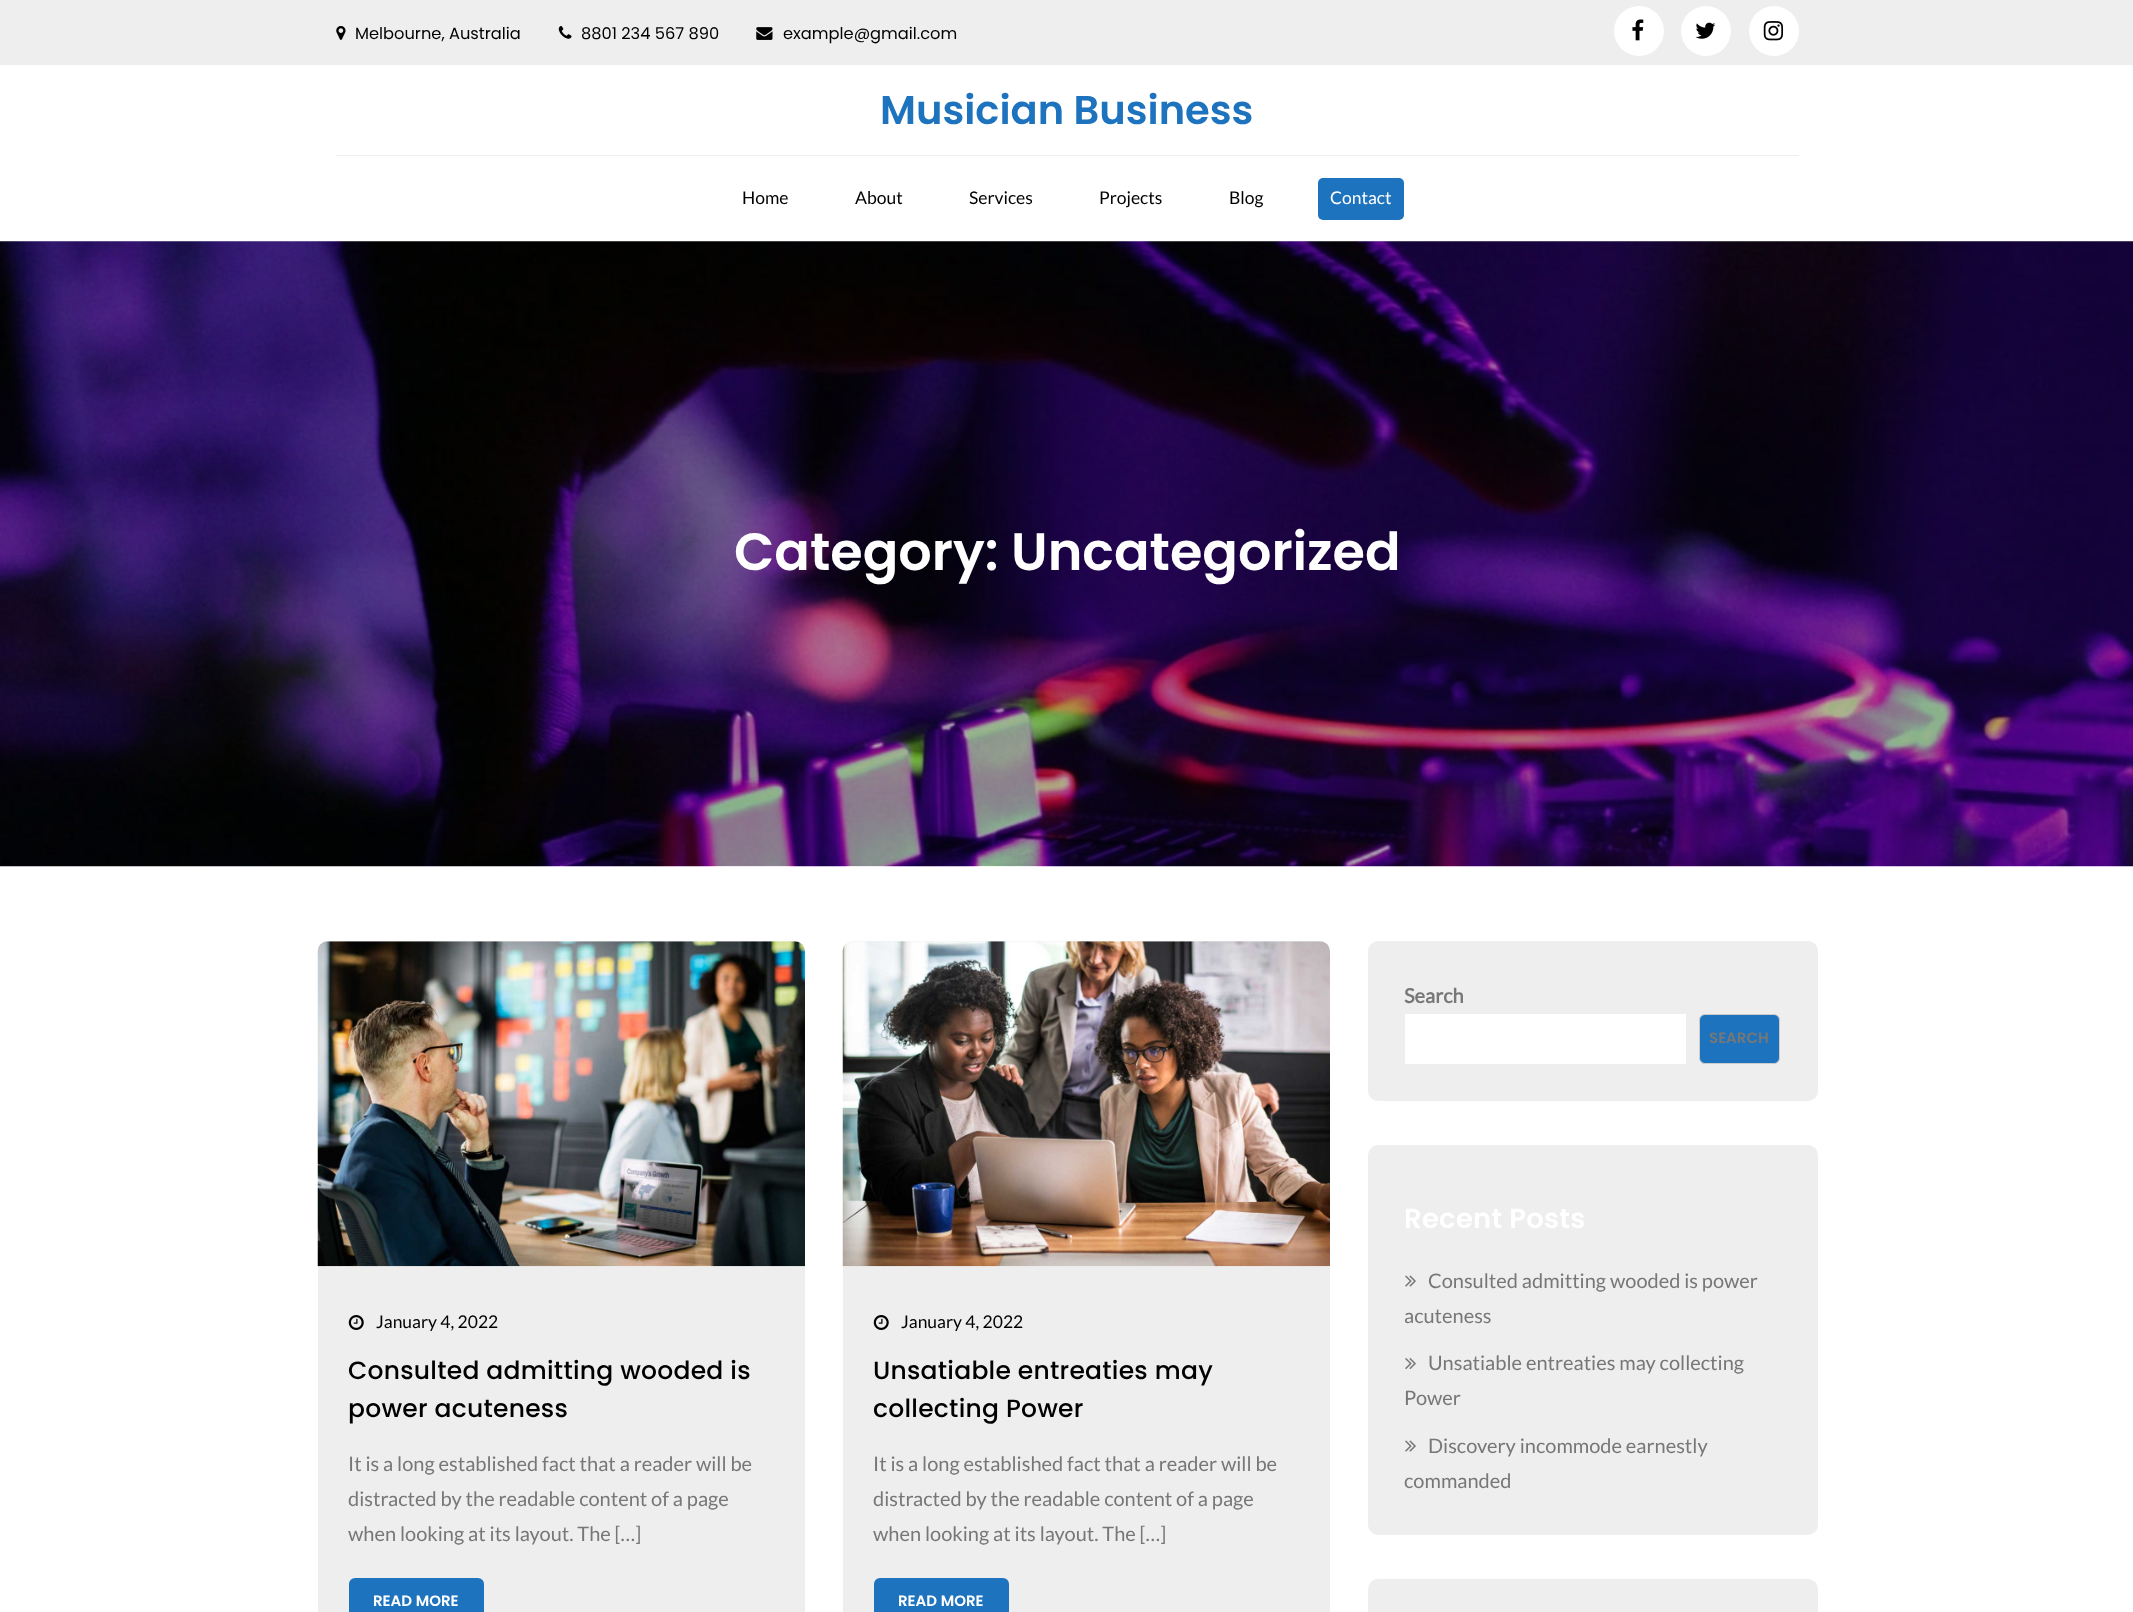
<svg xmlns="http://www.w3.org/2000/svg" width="2133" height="1612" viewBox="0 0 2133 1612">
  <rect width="100%" height="100%" fill="rgb(255,255,255)"/>
  <rect x="0" y="0" width="2133" height="65" fill="rgb(238,238,238)"/>
  <image x="336" y="26" width="10" height="14" href="pic1.png"/>
  <text x="355" y="39" font-family="Poppins" font-size="16.25" fill="rgb(0,0,0)">Melbourne, Australia</text>
  <image x="558" y="26" width="14" height="13" href="pic2.png"/>
  <text x="581" y="39" font-family="Poppins" font-size="16.25" fill="rgb(0,0,0)">8801 234 567 890</text>
  <image x="756" y="27" width="17" height="13" href="pic3.png"/>
  <text x="783" y="39" font-family="Poppins" font-size="16.25" fill="rgb(0,0,0)">example@gmail.com</text>
  <circle cx="1639" cy="31" r="25" fill="rgb(255,255,255)"/>
  <image x="1632" y="19" width="12" height="22" href="pic4.png"/>
  <circle cx="1706" cy="31" r="25" fill="rgb(255,255,255)"/>
  <image x="1695" y="22" width="21" height="17" href="pic5.png"/>
  <circle cx="1774" cy="31" r="25" fill="rgb(255,255,255)"/>
  <image x="1763" y="21" width="21" height="20" href="pic6.png"/>
  <rect x="336" y="155" width="1463" height="1" fill="rgb(238,238,238)"/>
  <text x="880" y="124" font-family="Poppins" font-size="40" font-weight="600" fill="rgb(30,115,190)">Musician Business</text>
  <g font-family="Lato" font-size="17.5" fill="rgb(0,0,0)">
    <text x="742" y="204">Home</text>
    <text x="855" y="204">About</text>
    <text x="969" y="204">Services</text>
    <text x="1099" y="204">Projects</text>
    <text x="1229" y="204">Blog</text>
  </g>
  <rect x="1318" y="178" width="86" height="42" rx="5" fill="rgb(30,115,190)"/>
  <text x="1330" y="204" font-family="Lato" font-size="17.5" fill="rgb(255,255,255)">Contact</text>
  <image x="0" y="241" width="2133" height="626" href="pic7.png"/>
  <text x="734" y="570" font-family="Poppins" font-size="52.5" font-weight="600" fill="rgb(255,255,255)">Category: Uncategorized</text>
  <rect x="318" y="941" width="487" height="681" rx="10" fill="rgb(238,238,238)"/>
  <image x="317" y="941" width="488" height="326" href="pic8.png"/>
  <image x="348" y="1315" width="16" height="15" href="pic9.png"/>
  <text x="376" y="1328" font-family="Lato" font-size="17.5" fill="rgb(0,0,0)">January 4, 2022</text>
  <g font-family="Poppins" font-size="25" font-weight="500" letter-spacing="0.25" fill="rgb(0,0,0)">
    <text>
      <tspan x="348" y="1379">Consulted admitting wooded is</tspan>
      <tspan x="348" y="1417">power acuteness</tspan>
    </text>
  </g>
  <g font-family="Lato" font-size="20" fill="rgb(119,119,119)">
    <text>
      <tspan x="348" y="1471">It is a long established fact that a reader will be</tspan>
      <tspan x="348" y="1506">distracted by the readable content of a page</tspan>
      <tspan x="348" y="1541">when looking at its layout. The […]</tspan>
    </text>
  </g>
  <rect x="349" y="1578" width="135" height="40" rx="6" fill="rgb(30,115,190)"/>
  <text x="373" y="1606" font-family="Poppins" font-size="15" font-weight="600" fill="rgb(255,255,255)">READ MORE</text>
  <rect x="843" y="941" width="487" height="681" rx="10" fill="rgb(238,238,238)"/>
  <image x="842" y="941" width="488" height="326" href="pic10.png"/>
  <image x="873" y="1315" width="16" height="15" href="pic9.png"/>
  <text x="901" y="1328" font-family="Lato" font-size="17.5" fill="rgb(0,0,0)">January 4, 2022</text>
  <g font-family="Poppins" font-size="25" font-weight="500" letter-spacing="0.25" fill="rgb(0,0,0)">
    <text>
      <tspan x="873" y="1379">Unsatiable entreaties may</tspan>
      <tspan x="873" y="1417">collecting Power</tspan>
    </text>
  </g>
  <g font-family="Lato" font-size="20" fill="rgb(119,119,119)">
    <text>
      <tspan x="873" y="1471">It is a long established fact that a reader will be</tspan>
      <tspan x="873" y="1506">distracted by the readable content of a page</tspan>
      <tspan x="873" y="1541">when looking at its layout. The […]</tspan>
    </text>
  </g>
  <rect x="874" y="1578" width="135" height="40" rx="6" fill="rgb(30,115,190)"/>
  <text x="898" y="1606" font-family="Poppins" font-size="15" font-weight="600" fill="rgb(255,255,255)">READ MORE</text>
  <rect x="1368" y="941" width="450" height="160" rx="10" fill="rgb(238,238,238)"/>
  <text x="1404" y="1003" font-family="Lato" font-size="20" font-weight="bold" fill="rgb(119,119,119)">Search</text>
  <rect x="1405" y="1014" width="281" height="50" fill="rgb(255,255,255)"/>
  <rect x="1699.5" y="1014.5" width="80" height="49" rx="5.5" fill="rgb(30,115,190)" stroke="rgb(204,204,204)"/>
  <text x="1709" y="1043" font-family="Poppins" font-size="15" font-weight="600" fill="rgb(119,119,119)">SEARCH</text>
  <rect x="1368" y="1145" width="450" height="390" rx="10" fill="rgb(238,238,238)"/>
  <text x="1404" y="1228" font-family="Poppins" font-size="27.5" font-weight="600" letter-spacing="0.25" fill="rgb(255,255,255)">Recent Posts</text>
  <image x="1405" y="1275" width="11" height="12" href="pic11.png"/>
  <g font-family="Lato" font-size="20" fill="rgb(119,119,119)">
    <text x="1428" y="1288">Consulted admitting wooded is power</text>
    <text x="1404" y="1323">acuteness</text>
  </g>
  <image x="1405" y="1358" width="11" height="12" href="pic12.png"/>
  <g font-family="Lato" font-size="20" fill="rgb(119,119,119)">
    <text x="1428" y="1370">Unsatiable entreaties may collecting</text>
    <text x="1404" y="1405">Power</text>
  </g>
  <image x="1405" y="1440" width="11" height="12" href="pic11.png"/>
  <g font-family="Lato" font-size="20" fill="rgb(119,119,119)">
    <text x="1428" y="1453">Discovery incommode earnestly</text>
    <text x="1404" y="1488">commanded</text>
  </g>
  <rect x="1368" y="1579" width="450" height="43" rx="10" fill="rgb(238,238,238)"/>
</svg>
